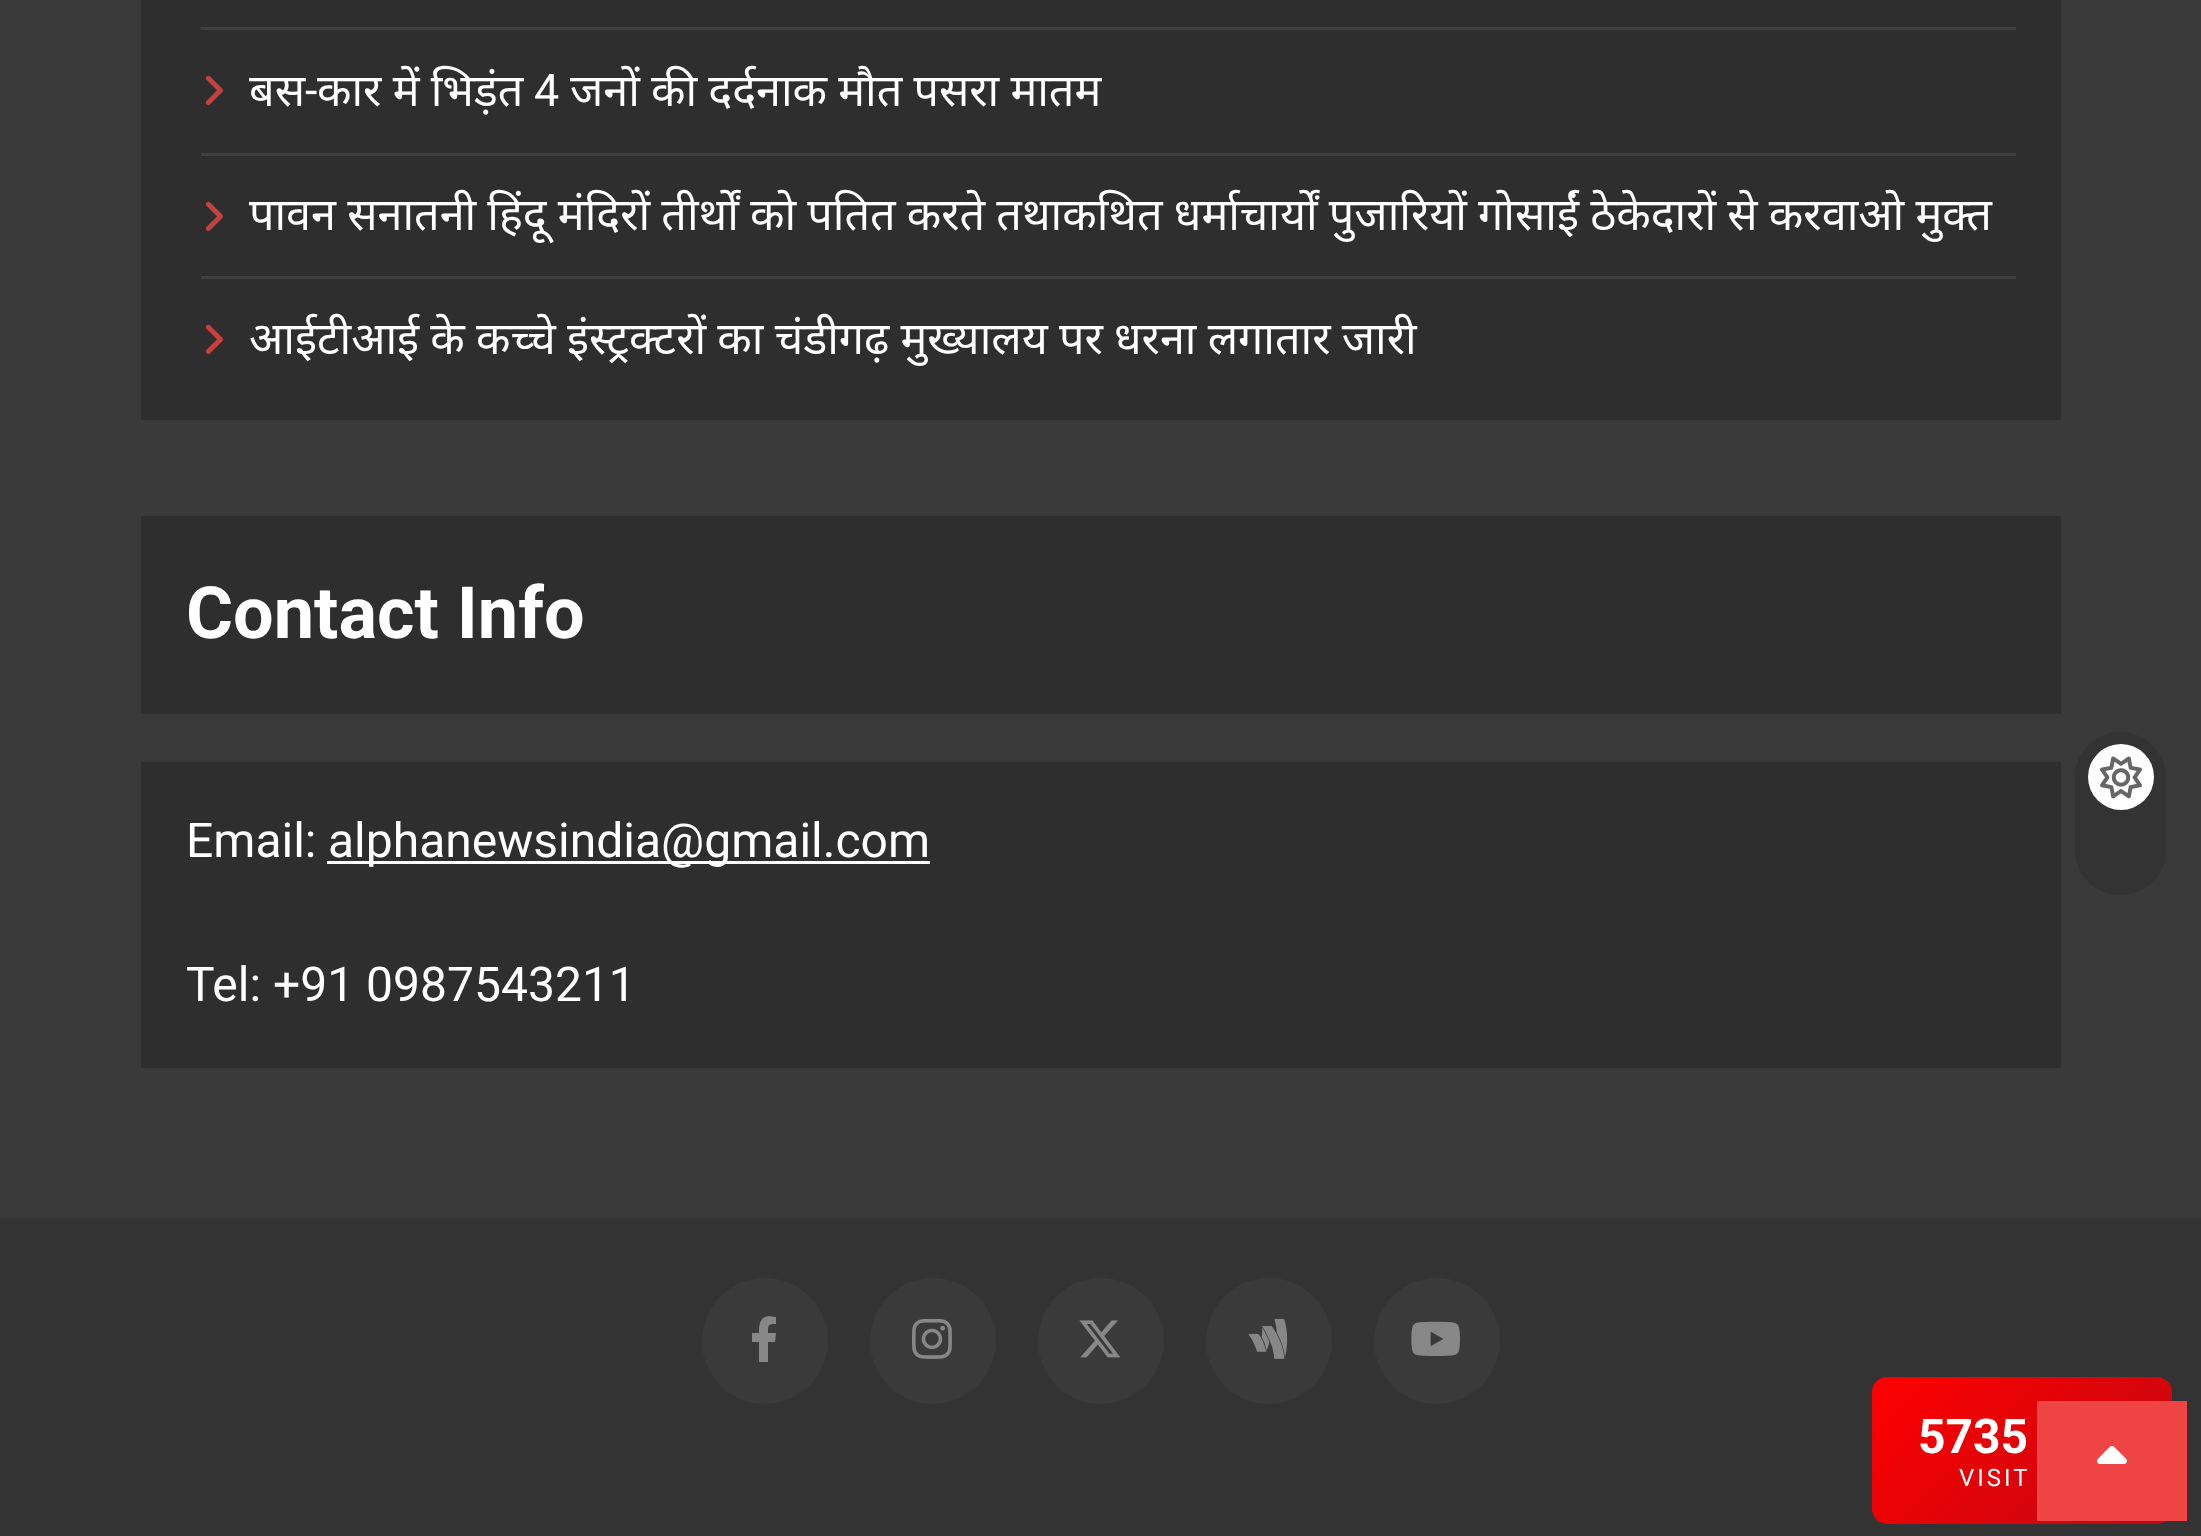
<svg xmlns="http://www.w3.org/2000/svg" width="2201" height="1536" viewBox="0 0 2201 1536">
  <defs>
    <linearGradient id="g1" gradientUnits="userSpaceOnUse" x1="2025" y1="1224" x2="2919" y2="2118"><stop offset="0" stop-color="rgb(255,0,0)"/><stop offset="1" stop-color="rgb(0,32,69)"/></linearGradient>
  </defs>
  <rect width="100%" height="100%" fill="rgb(57,57,57)"/>
  <rect x="141" y="0" width="1920" height="420" fill="rgb(46,46,46)"/>
  <rect x="201" y="27" width="1815" height="3" fill="rgb(63,63,63)"/>
  <rect x="201" y="153" width="1815" height="3" fill="rgb(63,63,63)"/>
  <image x="205" y="75" width="18" height="30" href="pic1.png"/>
  <text x="249" y="106" font-family="Noto Sans" font-size="44.9" fill="rgb(255,255,255)">बस</text>
  <text x="305" y="106" font-family="Roboto" font-size="44.9" fill="rgb(255,255,255)">-</text>
  <text x="317" y="106" word-spacing="-0.5" font-family="Noto Sans" font-size="44.9" fill="rgb(255,255,255)">कार में भिड़ंत</text>
  <text x="534" y="106" font-family="Roboto" font-size="44.9" fill="rgb(255,255,255)">4</text>
  <text x="570" y="106" word-spacing="-0.5" font-family="Noto Sans" font-size="44.9" fill="rgb(255,255,255)">जनों की दर्दनाक मौत पसरा मातम</text>
  <rect x="201" y="276" width="1815" height="3" fill="rgb(63,63,63)"/>
  <image x="205" y="201" width="18" height="30" href="pic1.png"/>
  <text x="249" y="230" word-spacing="-0.5" font-family="Noto Sans" font-size="44.9" fill="rgb(255,255,255)">पावन सनातनी हिंदू मंदिरों तीर्थों को पतित करते तथाकथित धर्माचार्यों पुजारियों गोसाईं ठेकेदारों से करवाओ मुक्त</text>
  <image x="205" y="324" width="18" height="30" href="pic1.png"/>
  <text x="249" y="354" word-spacing="-0.5" font-family="Noto Sans" font-size="44.9" fill="rgb(255,255,255)">आईटीआई के कच्चे इंस्ट्रक्टरों का चंडीगढ़ मुख्यालय पर धरना लगातार जारी</text>
  <rect x="141" y="516" width="1920" height="198" fill="rgb(46,46,46)"/>
  <text x="186" y="638" font-family="Roboto" font-size="72" font-weight="bold" fill="rgb(255,255,255)">Contact Info</text>
  <rect x="141" y="762" width="1920" height="306" fill="rgb(46,46,46)"/>
  <text x="186" y="857" font-family="Roboto" font-size="48" fill="rgb(255,255,255)">Email:</text>
  <rect x="327" y="861" width="603" height="3" fill="rgb(255,255,255)"/>
  <g font-family="Roboto" font-size="48" fill="rgb(255,255,255)">
    <text x="328" y="857">alphanewsindia@gmail.com</text>
    <text x="186" y="1001">Tel: +91 0987543211</text>
  </g>
  <rect x="0" y="1218" width="2201" height="318" fill="rgb(51,51,51)"/>
  <circle cx="765" cy="1341" r="63" fill="rgb(58,58,58)"/>
  <path d="M775 1342L776 1333H768C768 1325 768 1324 776 1324V1317L769 1316C759 1317 759 1326 759 1333H752V1342H759V1362H768V1342Z" fill="rgb(135,135,135)"/>
  <circle cx="933" cy="1341" r="63" fill="rgb(58,58,58)"/>
  <image x="912" y="1318" width="40" height="41" href="pic2.png"/>
  <circle cx="1101" cy="1341" r="63" fill="rgb(58,58,58)"/>
  <image x="1079" y="1320" width="42" height="38" href="pic3.png"/>
  <circle cx="1269" cy="1341" r="63" fill="rgb(58,58,58)"/>
  <image x="1248" y="1318" width="40" height="41" href="pic4.png"/>
  <circle cx="1437" cy="1341" r="63" fill="rgb(58,58,58)"/>
  <image x="1411" y="1321" width="49" height="35" href="pic5.png"/>
  <path d="M2166 778V850C2166 875 2146 895 2120 895C2095 895 2075 875 2075 850V778C2075 752 2095 732 2120 732C2146 732 2166 752 2166 778Z" fill="rgb(51,51,51)"/>
  <circle cx="2121" cy="777" r="33" fill="rgb(255,255,255)"/>
  <image x="2100" y="756" width="42" height="43" href="pic6.png"/>
  <rect x="1872" y="1377" width="300" height="147" rx="15" fill="url(#g1)"/>
  <rect x="2037" y="1401" width="150" height="120" fill="rgb(239,68,68)"/>
  <image x="2097" y="1446" width="30" height="18" href="pic7.png"/>
  <text x="1918" y="1453" font-family="Roboto" font-size="48" font-weight="bold" fill="rgb(255,255,255)">5735</text>
  <text x="1959" y="1486" font-family="Roboto" font-size="24" letter-spacing="3" fill="rgb(255,255,255)">VISIT</text>
</svg>
